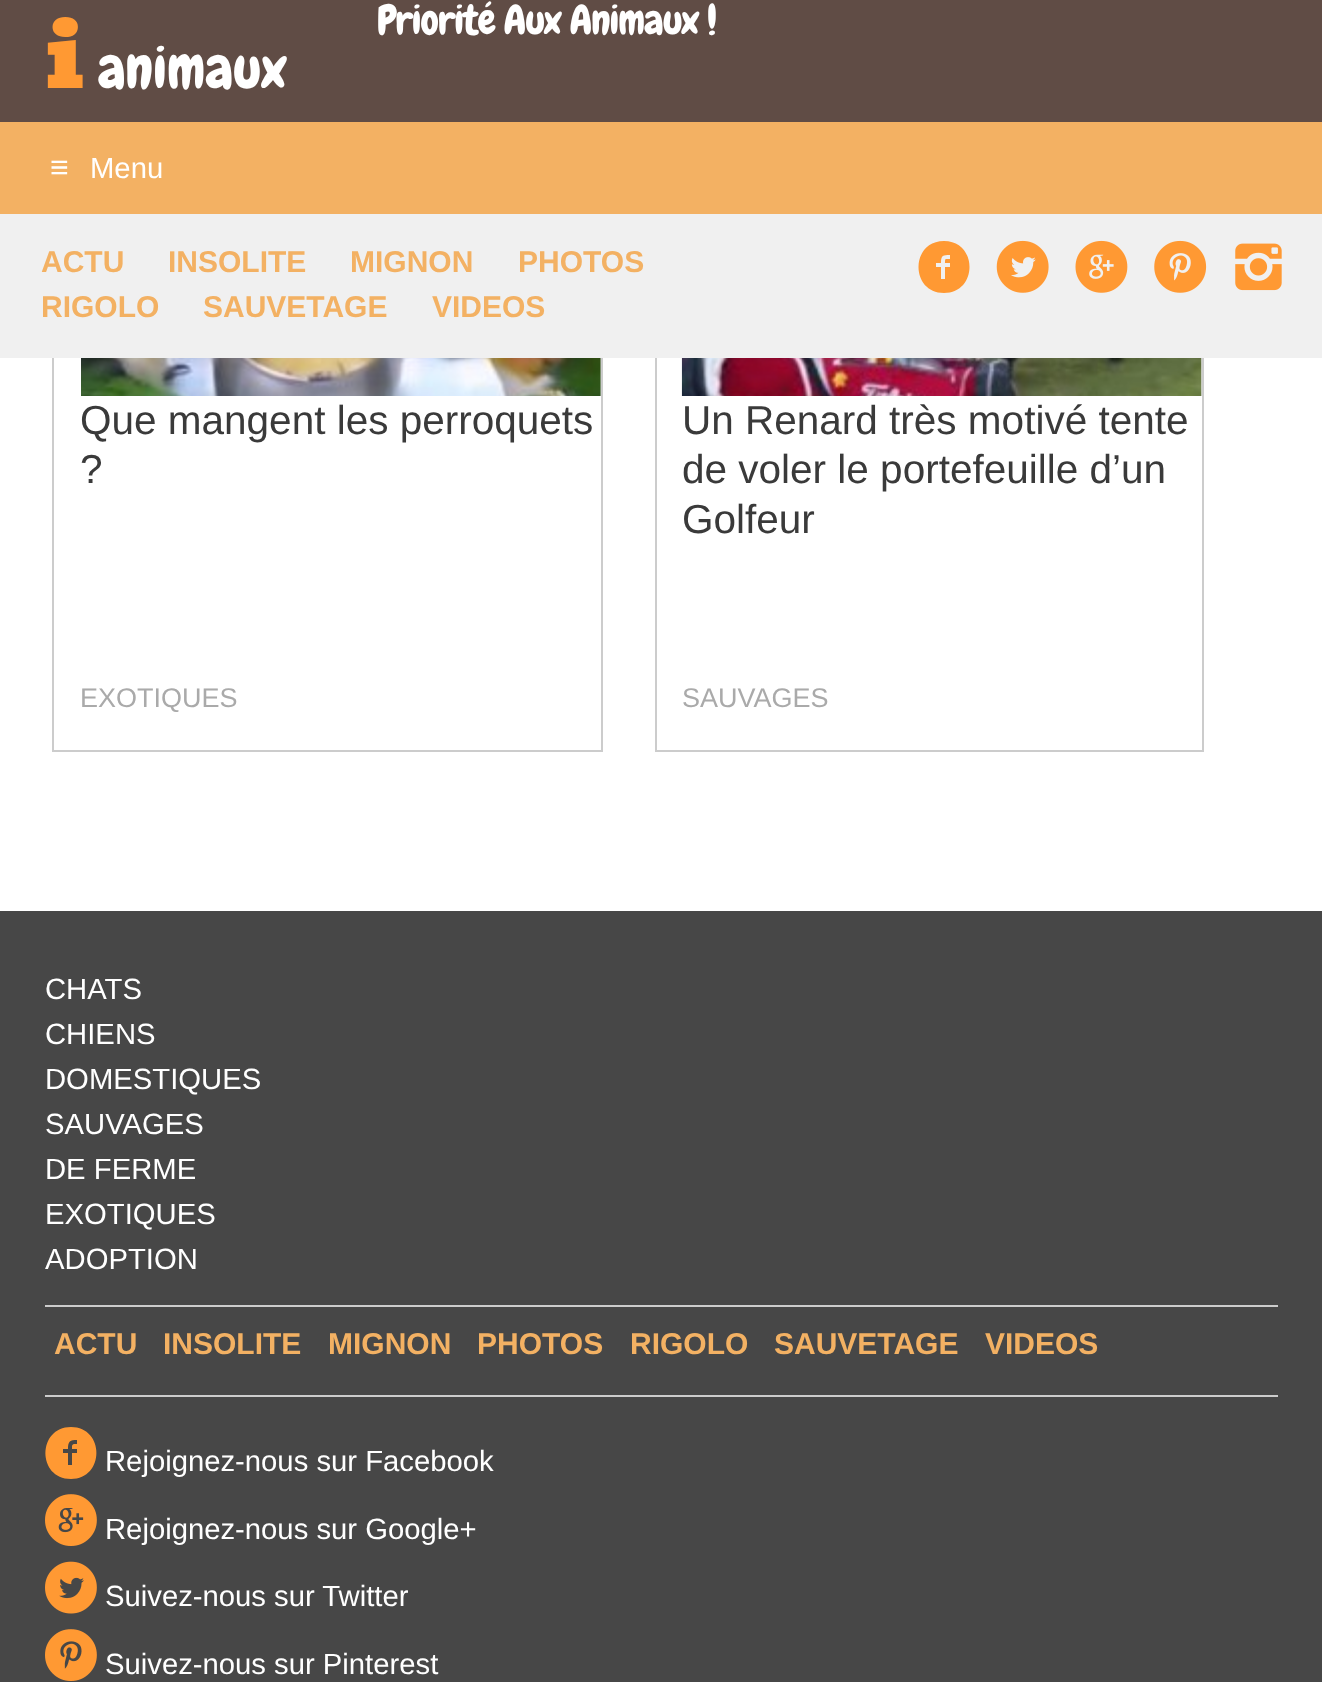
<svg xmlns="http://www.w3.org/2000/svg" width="1322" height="1682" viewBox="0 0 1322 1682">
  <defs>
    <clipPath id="clip1"><rect x="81" y="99" width="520" height="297"/></clipPath>
    <clipPath id="clip2"><rect x="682" y="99" width="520" height="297"/></clipPath>
  </defs>
  <rect width="100%" height="100%" fill="rgb(255,255,255)"/>
  <rect x="53" y="73" width="549" height="678" fill="none" stroke="rgb(204,204,204)" stroke-width="2"/>
  <g clip-path="url(#clip1)">
    <rect x="81" y="101" width="520" height="360" fill="rgba(0,0,0,0.2)" filter="blur(4.5px)"/>
  </g>
  <rect x="656" y="73" width="547" height="678" fill="none" stroke="rgb(204,204,204)" stroke-width="2"/>
  <g clip-path="url(#clip2)">
    <rect x="682" y="101" width="520" height="360" fill="rgba(0,0,0,0.2)" filter="blur(4.5px)"/>
  </g>
  <rect x="0" y="0" width="1322" height="122" fill="rgb(96,76,69)"/>
  <text x="45" y="88" font-family="Bevan" font-size="90" fill="rgb(255,153,51)">i</text>
  <text x="98" y="88" font-family="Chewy" font-size="58.5" fill="rgb(255,255,255)">animaux</text>
  <text x="377" y="34" font-family="Chewy" font-size="41" letter-spacing="-1" fill="rgb(255,255,255)">Priorité Aux Animaux !</text>
  <rect x="0" y="122" width="1322" height="92" fill="rgb(243,177,99)"/>
  <text x="50" y="178" font-family="Liberation Sans" font-size="32" fill="rgb(255,255,255)">≡</text>
  <text x="90" y="178" font-family="Liberation Sans" font-size="29.25" fill="rgb(255,255,255)">Menu</text>
  <rect x="0" y="214" width="1322" height="144" fill="rgb(240,240,240)"/>
  <g font-family="Liberation Sans" font-size="30" font-weight="bold" fill="rgb(243,177,99)">
    <text x="41" y="272">ACTU</text>
    <text x="168" y="272">INSOLITE</text>
    <text x="350" y="272">MIGNON</text>
    <text x="518" y="272">PHOTOS</text>
    <text x="41" y="317">RIGOLO</text>
    <text x="203" y="317">SAUVETAGE</text>
    <text x="432" y="317">VIDEOS</text>
  </g>
  <path d="M944 241C978 241 978 293 944 293C910 293 910 241 944 241ZM950 259V255C943 255 941 255 941 263H936V267H941V279H945V267H950V263H945C945 258 945 259 950 259Z" fill="rgb(255,153,51)"/>
  <image x="996" y="240" width="53" height="53" href="pic1.png"/>
  <image x="1075" y="240" width="53" height="53" href="pic2.png"/>
  <image x="1154" y="240" width="53" height="53" href="pic3.png"/>
  <image x="1235" y="243" width="47" height="48" href="pic4.png"/>
  <image x="81" y="358" width="520" height="38" href="pic5.png"/>
  <g font-family="Liberation Sans" font-size="40.5" fill="rgb(58,58,58)">
    <text>
      <tspan x="80" y="434">Que mangent les perroquets</tspan>
      <tspan x="80" y="483">?</tspan>
    </text>
  </g>
  <text x="80" y="707" font-family="Liberation Sans" font-size="27" fill="rgb(170,170,170)">EXOTIQUES</text>
  <image x="681" y="358" width="521" height="38" href="pic6.png"/>
  <g font-family="Liberation Sans" font-size="40.5" fill="rgb(58,58,58)">
    <text>
      <tspan x="682" y="434">Un Renard très motivé tente</tspan>
      <tspan x="682" y="483">de voler le portefeuille d’un</tspan>
      <tspan x="682" y="533">Golfeur</tspan>
    </text>
  </g>
  <text x="682" y="707" font-family="Liberation Sans" font-size="27" fill="rgb(170,170,170)">SAUVAGES</text>
  <rect x="0" y="911" width="1322" height="771" fill="rgb(71,71,71)"/>
  <rect x="45" y="1305" width="1233" height="2" fill="rgb(204,204,204)"/>
  <g font-family="Liberation Sans" font-size="29.25" fill="rgb(255,255,255)">
    <text>
      <tspan x="45" y="999">CHATS</tspan>
      <tspan x="45" y="1044">CHIENS</tspan>
      <tspan x="45" y="1089">DOMESTIQUES</tspan>
      <tspan x="45" y="1134">SAUVAGES</tspan>
      <tspan x="45" y="1179">DE FERME</tspan>
      <tspan x="45" y="1224">EXOTIQUES</tspan>
      <tspan x="45" y="1269">ADOPTION</tspan>
    </text>
  </g>
  <rect x="45" y="1395" width="1233" height="2" fill="rgb(204,204,204)"/>
  <g font-family="Liberation Sans" font-size="30" font-weight="bold" fill="rgb(243,177,99)">
    <text x="54" y="1354">ACTU</text>
    <text x="163" y="1354">INSOLITE</text>
    <text x="328" y="1354">MIGNON</text>
    <text x="477" y="1354">PHOTOS</text>
    <text x="630" y="1354">RIGOLO</text>
    <text x="774" y="1354">SAUVETAGE</text>
    <text x="985" y="1354">VIDEOS</text>
  </g>
  <path d="M71 1427C105 1427 105 1479 71 1479C37 1479 37 1427 71 1427ZM77 1444V1440C70 1440 68 1441 68 1449H63V1453H68V1465H72V1453H77V1449H72C72 1444 72 1444 77 1444Z" fill="rgb(255,153,51)"/>
  <text x="105" y="1471" font-family="Liberation Sans" font-size="29.25" fill="rgb(255,255,255)">Rejoignez-nous sur Facebook</text>
  <image x="45" y="1494" width="52" height="52" href="pic7.png"/>
  <text x="105" y="1539" font-family="Liberation Sans" font-size="29.25" fill="rgb(255,255,255)">Rejoignez-nous sur Google+</text>
  <image x="45" y="1561" width="52" height="53" href="pic8.png"/>
  <text x="105" y="1606" font-family="Liberation Sans" font-size="29.25" fill="rgb(255,255,255)">Suivez-nous sur Twitter</text>
  <image x="45" y="1629" width="52" height="52" href="pic9.png"/>
  <text x="105" y="1674" font-family="Liberation Sans" font-size="29.25" fill="rgb(255,255,255)">Suivez-nous sur Pinterest</text>
</svg>
